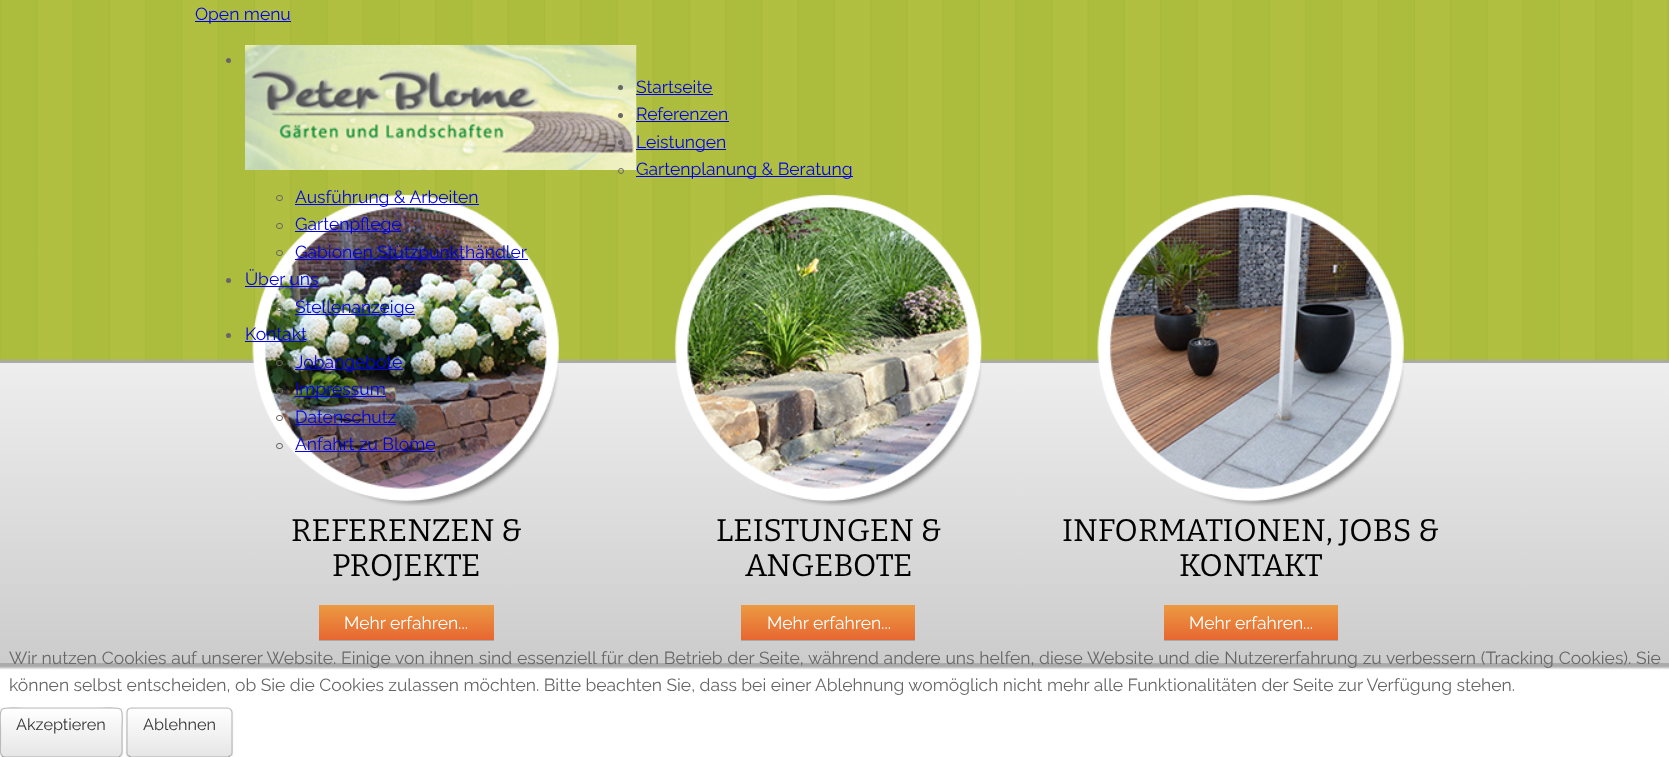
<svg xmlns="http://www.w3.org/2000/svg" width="1669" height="757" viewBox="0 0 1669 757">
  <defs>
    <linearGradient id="g1" gradientUnits="userSpaceOnUse" x1="835" y1="362" x2="835" y2="663"><stop offset="0" stop-color="rgb(238,238,238)"/><stop offset="1" stop-color="rgb(204,204,204)"/></linearGradient>
    <linearGradient id="g2" gradientUnits="userSpaceOnUse" x1="406" y1="605" x2="406" y2="640"><stop offset="0.05" stop-color="rgb(235,152,65)"/><stop offset="1" stop-color="rgb(231,102,49)"/></linearGradient>
    <linearGradient id="g3" gradientUnits="userSpaceOnUse" x1="828" y1="605" x2="828" y2="640"><stop offset="0.05" stop-color="rgb(235,152,65)"/><stop offset="1" stop-color="rgb(231,102,49)"/></linearGradient>
    <linearGradient id="g4" gradientUnits="userSpaceOnUse" x1="1251" y1="605" x2="1251" y2="640"><stop offset="0.05" stop-color="rgb(235,152,65)"/><stop offset="1" stop-color="rgb(231,102,49)"/></linearGradient>
    <clipPath id="clip1"><rect x="0" y="708" width="123" height="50" rx="5"/></clipPath>
    <linearGradient id="g5" gradientUnits="userSpaceOnUse" x1="61" y1="709" x2="61" y2="756"><stop offset="0" stop-color="rgb(255,255,255)"/><stop offset="1" stop-color="rgb(230,230,230)"/></linearGradient>
    <clipPath id="clip2"><rect x="126" y="708" width="107" height="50" rx="5"/></clipPath>
    <linearGradient id="g6" gradientUnits="userSpaceOnUse" x1="179" y1="709" x2="179" y2="756"><stop offset="0" stop-color="rgb(255,255,255)"/><stop offset="1" stop-color="rgb(230,230,230)"/></linearGradient>
  </defs>
  <rect width="100%" height="100%" fill="rgb(255,255,255)"/>
  <image x="0" y="0" width="1669" height="363" href="pic1.png"/>
  <rect x="195" y="21" width="96" height="1" fill="rgb(0,0,238)"/>
  <text x="195" y="20" font-family="Raleway" font-size="17.5" fill="rgb(0,0,238)">Open menu</text>
  <circle cx="228.5" cy="60.5" r="2.5" fill="rgb(102,102,102)"/>
  <image x="245" y="45" width="392" height="125" href="pic2.png"/>
  <circle cx="620.5" cy="87.5" r="2.5" fill="rgb(102,102,102)"/>
  <text x="636" y="93" font-family="Raleway" font-size="17.5" fill="rgb(0,0,238)">Startseite</text>
  <rect x="636" y="94" width="77" height="1" fill="rgb(0,0,238)"/>
  <circle cx="620.5" cy="115.5" r="2.5" fill="rgb(102,102,102)"/>
  <text x="636" y="120" font-family="Raleway" font-size="17.5" fill="rgb(0,0,238)">Referenzen</text>
  <rect x="636" y="121" width="93" height="1" fill="rgb(0,0,238)"/>
  <circle cx="620.5" cy="142.5" r="2.5" fill="rgb(102,102,102)"/>
  <rect x="636" y="149" width="90" height="1" fill="rgb(0,0,238)"/>
  <text x="636" y="148" font-family="Raleway" font-size="17.5" fill="rgb(0,0,238)">Leistungen</text>
  <circle cx="621" cy="171" r="2.5" fill="none" stroke="rgb(102,102,102)"/>
  <rect x="636" y="176" width="217" height="1" fill="rgb(0,0,238)"/>
  <text x="636" y="175" font-family="Raleway" font-size="17.5" fill="rgb(0,0,238)">Gartenplanung &amp; Beratung</text>
  <rect x="-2" y="360" width="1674" height="308" fill="rgb(170,170,170)" filter="blur(1px)"/>
  <rect x="0" y="363" width="1669" height="300" fill="url(#g1)"/>
  <image x="252" y="194" width="307" height="312" href="pic3.png"/>
  <rect x="276.5" y="195.5" width="6" height="5" rx="2.5" fill="none" stroke="rgb(102,102,102)"/>
  <rect x="295" y="204" width="184" height="1" fill="rgb(0,0,238)"/>
  <text x="295" y="203" font-family="Raleway" font-size="17.5" fill="rgb(0,0,238)">Ausführung &amp; Arbeiten</text>
  <rect x="276.5" y="223.5" width="6" height="5" rx="2.5" fill="none" stroke="rgb(102,102,102)"/>
  <rect x="295" y="231" width="106" height="1" fill="rgb(0,0,238)"/>
  <text x="295" y="230" font-family="Raleway" font-size="17.5" fill="rgb(0,0,238)">Gartenpflege</text>
  <rect x="276.5" y="250.5" width="6" height="5" rx="2.5" fill="none" stroke="rgb(102,102,102)"/>
  <rect x="295" y="259" width="233" height="1" fill="rgb(0,0,238)"/>
  <text x="295" y="258" font-family="Raleway" font-size="17.5" fill="rgb(0,0,238)">Gabionen Stützpunkthändler</text>
  <circle cx="228.5" cy="280.5" r="2.5" fill="rgb(102,102,102)"/>
  <text x="245" y="285" font-family="Raleway" font-size="17.5" fill="rgb(0,0,238)">Über uns</text>
  <rect x="245" y="286" width="74" height="1" fill="rgb(0,0,238)"/>
  <rect x="276.5" y="305.5" width="6" height="5" rx="2.5" fill="none" stroke="rgb(102,102,102)"/>
  <rect x="295" y="314" width="120" height="1" fill="rgb(0,0,238)"/>
  <text x="295" y="313" font-family="Raleway" font-size="17.5" fill="rgb(0,0,238)">Stellenanzeige</text>
  <circle cx="228.5" cy="335.5" r="2.5" fill="rgb(102,102,102)"/>
  <text x="245" y="340" font-family="Raleway" font-size="17.5" fill="rgb(0,0,238)">Kontakt</text>
  <rect x="245" y="341" width="61" height="1" fill="rgb(0,0,238)"/>
  <rect x="276.5" y="360.5" width="6" height="5" rx="2.5" fill="none" stroke="rgb(102,102,102)"/>
  <rect x="295" y="369" width="108" height="1" fill="rgb(0,0,238)"/>
  <text x="295" y="368" font-family="Raleway" font-size="17.5" fill="rgb(0,0,238)">Jobangebote</text>
  <rect x="276.5" y="388.5" width="6" height="5" rx="2.5" fill="none" stroke="rgb(102,102,102)"/>
  <rect x="295" y="396" width="91" height="1" fill="rgb(0,0,238)"/>
  <text x="295" y="395" font-family="Raleway" font-size="17.5" fill="rgb(0,0,238)">Impressum</text>
  <rect x="276.5" y="415.5" width="6" height="5" rx="2.5" fill="none" stroke="rgb(102,102,102)"/>
  <text x="295" y="423" font-family="Raleway" font-size="17.5" fill="rgb(0,0,238)">Datenschutz</text>
  <rect x="295" y="424" width="101" height="1" fill="rgb(0,0,238)"/>
  <rect x="276.5" y="443.5" width="6" height="5" rx="2.5" fill="none" stroke="rgb(102,102,102)"/>
  <text x="295" y="450" font-family="Raleway" font-size="17.5" fill="rgb(0,0,238)">Anfahrt zu Blome</text>
  <rect x="295" y="451" width="140" height="1" fill="rgb(0,0,238)"/>
  <g font-family="Bitter" font-size="31.25" fill="rgb(0,0,0)">
    <text x="291" y="541">REFERENZEN &amp;</text>
    <text x="332" y="576">PROJEKTE</text>
  </g>
  <rect x="319" y="606" width="175" height="35" fill="rgb(170,170,170)" filter="blur(0.5px)"/>
  <rect x="319" y="605" width="175" height="35" fill="url(#g2)"/>
  <text x="344" y="629" font-family="Raleway" font-size="17.5" fill="rgb(255,255,255)">Mehr erfahren...</text>
  <image x="674" y="194" width="308" height="312" href="pic4.png"/>
  <g font-family="Bitter" font-size="31.25" fill="rgb(0,0,0)">
    <text x="716" y="541">LEISTUNGEN &amp;</text>
    <text x="745" y="576">ANGEBOTE</text>
  </g>
  <rect x="741" y="606" width="174" height="35" fill="rgb(170,170,170)" filter="blur(0.5px)"/>
  <rect x="741" y="605" width="174" height="35" fill="url(#g3)"/>
  <text x="767" y="629" font-family="Raleway" font-size="17.5" fill="rgb(255,255,255)">Mehr erfahren...</text>
  <image x="1097" y="194" width="307" height="312" href="pic5.png"/>
  <g font-family="Bitter" font-size="31.25" fill="rgb(0,0,0)">
    <text x="1062" y="541">INFORMATIONEN, JOBS &amp;</text>
    <text x="1179" y="576">KONTAKT</text>
  </g>
  <rect x="1164" y="606" width="174" height="35" fill="rgb(170,170,170)" filter="blur(0.5px)"/>
  <rect x="1164" y="605" width="174" height="35" fill="url(#g4)"/>
  <text x="1189" y="629" font-family="Raleway" font-size="17.5" fill="rgb(255,255,255)">Mehr erfahren...</text>
  <g font-family="Raleway" font-size="17.5" fill="rgb(102,102,102)">
    <text>
      <tspan x="9" y="664" word-spacing="0.3">Wir nutzen Cookies auf unserer Website. Einige von ihnen sind essenziell für den Betrieb der Seite, während andere uns helfen, diese Website und die Nutzererfahrung zu verbessern (Tracking Cookies). Sie</tspan>
      <tspan x="9" y="691">können selbst entscheiden, ob Sie die Cookies zulassen möchten. Bitte beachten Sie, dass bei einer Ablehnung womöglich nicht mehr alle Funktionalitäten der Seite zur Verfügung stehen.</tspan>
    </text>
  </g>
  <rect x="0" y="709" width="123" height="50" rx="5" fill="rgba(0,0,0,0.05)" filter="blur(1px)"/>
  <rect x="0" y="708" width="123" height="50" rx="5" fill="rgb(245,245,245)"/>
  <g clip-path="url(#clip1)">
    <rect x="0" y="709" width="123" height="47" fill="url(#g5)"/>
  </g>
  <path d="M120.5 755.5C120 756.5 118.5 757 117.5 757H5C4 757 2.5 756.5 2 755.5" fill="none" stroke="rgb(162,162,162)" stroke-width="1.2"/>
  <path d="M2 755.5C-.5 753.5 .5 748 .5 746V732.5C.5 704-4.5 708 24 708H99C127 708 122 704 122 732.5V746C122 748 123 753.5 120.5 755.5" fill="none" stroke="rgb(187,187,187)" stroke-width="1.2"/>
  <text x="16" y="730" font-family="Raleway" font-size="16.25" fill="rgb(51,51,51)">Akzeptieren</text>
  <rect x="126" y="709" width="107" height="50" rx="5" fill="rgba(0,0,0,0.05)" filter="blur(1px)"/>
  <rect x="126" y="708" width="107" height="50" rx="5" fill="rgb(245,245,245)"/>
  <g clip-path="url(#clip2)">
    <rect x="126" y="709" width="107" height="47" fill="url(#g6)"/>
  </g>
  <path d="M230.5 755.5L228 757H131L128 755.5" fill="none" stroke="rgb(162,162,162)" stroke-width="1.2"/>
  <path d="M128 755.5C127.5 755 127 753.5 127 752.5V712.5C127 711.5 127.5 710 128 709.5C129 708.5 130 708 131 708H227.5C228.5 708 230 708.5 230.5 709.5C231.5 710 232 711.5 232 712.5V752.5C232 753.5 231.5 755 230.5 755.5" fill="none" stroke="rgb(187,187,187)" stroke-width="1.2"/>
  <text x="143" y="730" font-family="Raleway" font-size="16.25" fill="rgb(51,51,51)">Ablehnen</text>
</svg>
